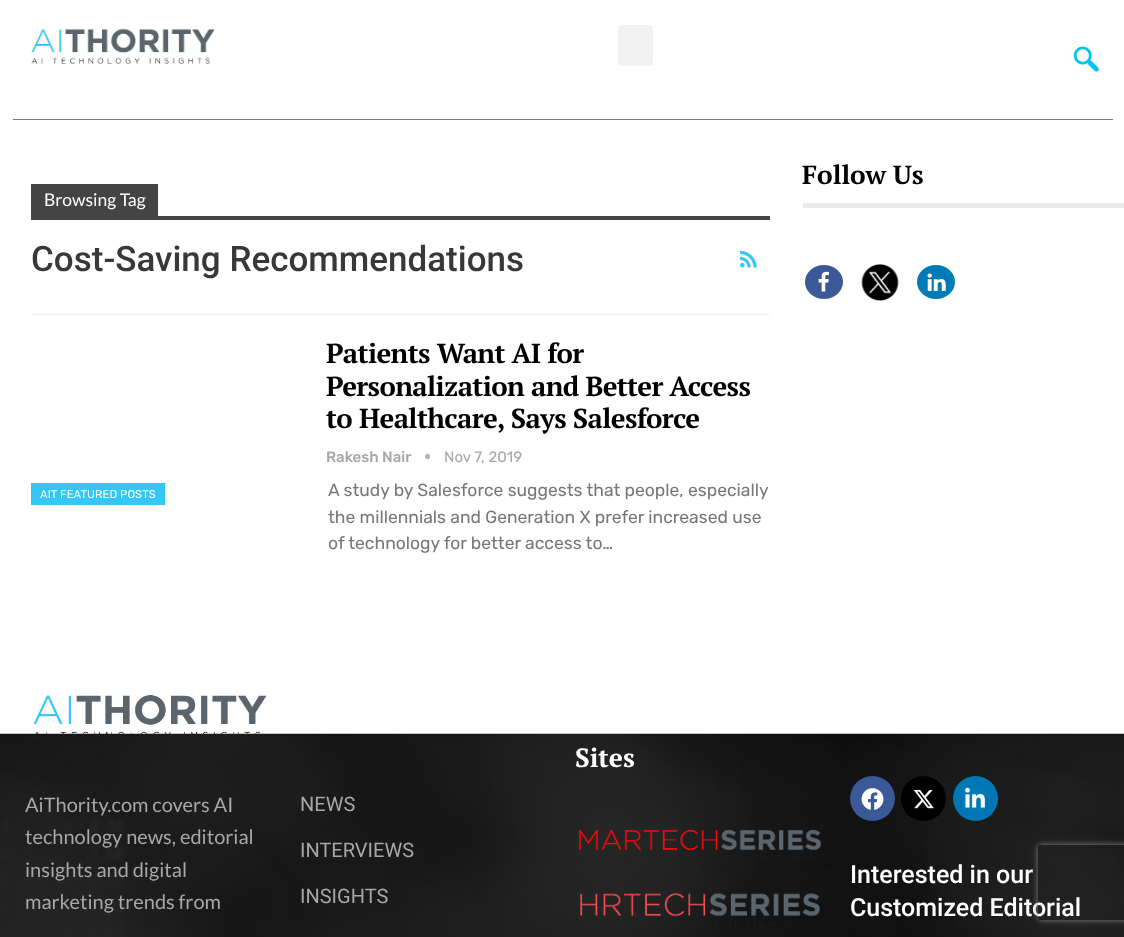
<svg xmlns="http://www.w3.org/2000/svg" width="1124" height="937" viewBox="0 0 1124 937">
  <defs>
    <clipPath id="clip1"><path d="M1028 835H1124V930H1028ZM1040.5 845H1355.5C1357 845 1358 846 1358 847.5V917.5C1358 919 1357 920 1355.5 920H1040.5C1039 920 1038 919 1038 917.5V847.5C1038 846 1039 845 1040.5 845Z" clip-rule="evenodd"/></clipPath>
  </defs>
  <rect width="100%" height="100%" fill="rgb(255,255,255)"/>
  <image x="31" y="28" width="184" height="36" href="pic1.png"/>
  <rect x="618" y="25" width="35" height="41" rx="4" fill="rgb(242,242,242)"/>
  <image x="1073" y="46" width="26" height="26" href="pic2.png"/>
  <rect x="13" y="119" width="1100" height="1" fill="rgb(123,123,123)"/>
  <text x="802" y="184" font-family="PT Serif" font-size="26.25" font-weight="bold" fill="rgb(0,0,0)">Follow Us</text>
  <rect x="803" y="203" width="321" height="5" fill="rgb(235,235,235)"/>
  <ellipse cx="824" cy="282" rx="19" ry="17" fill="rgb(59,89,152)"/>
  <image x="818" y="271" width="11" height="21" href="pic3.png"/>
  <image x="861" y="264" width="38" height="37" href="pic4.png"/>
  <ellipse cx="936" cy="282" rx="19" ry="17" fill="rgb(0,123,181)"/>
  <image x="927" y="273" width="19" height="18" href="pic5.png"/>
  <rect x="31" y="314" width="739" height="1" fill="rgb(240,240,240)"/>
  <rect x="31" y="184" width="127" height="32" fill="rgb(68,68,68)"/>
  <text x="44" y="206" font-family="Lato" font-size="17.5" fill="rgb(255,255,255)">Browsing Tag</text>
  <rect x="31" y="216" width="739" height="4" fill="rgb(68,68,68)"/>
  <text x="31" y="271" font-family="Roboto" font-size="35" font-weight="500" fill="rgb(56,56,56)">Cost-Saving Recommendations</text>
  <image x="740" y="250" width="17" height="18" href="pic6.png"/>
  <g font-family="PT Serif" font-size="27.5" font-weight="bold" letter-spacing="-0.6" fill="rgb(0,0,0)">
    <text>
      <tspan x="326" y="363">Patients Want AI for</tspan>
      <tspan x="326" y="396">Personalization and Better Access</tspan>
      <tspan x="326" y="428">to Healthcare, Says Salesforce</tspan>
    </text>
  </g>
  <text x="326" y="462" font-family="Rubik" font-size="15" font-weight="500" fill="rgb(167,167,167)">Rakesh Nair</text>
  <image x="425" y="453" width="5" height="7" href="pic7.png"/>
  <text x="444" y="462" font-family="Rubik" font-size="15" fill="rgb(167,167,167)">Nov 7, 2019</text>
  <rect x="31" y="483" width="134" height="22" fill="rgb(52,198,244)"/>
  <text x="40" y="498" font-family="Rubik" font-size="11.25" letter-spacing="0.1" fill="rgb(255,255,255)">AIT FEATURED POSTS</text>
  <g font-family="Rubik" font-size="17.5" fill="rgb(119,119,119)">
    <text>
      <tspan x="328" y="496">A study by Salesforce suggests that people, especially</tspan>
      <tspan x="328" y="523">the millennials and Generation X prefer increased use</tspan>
      <tspan x="328" y="549">of technology for better access to…</tspan>
    </text>
  </g>
  <image x="0" y="733" width="1124" height="204" href="pic8.png"/>
  <text x="575" y="767" font-family="PT Serif" font-size="26.25" font-weight="bold" fill="rgb(255,255,255)">Sites</text>
  <image x="578" y="829" width="244" height="31" href="pic9.png"/>
  <image x="580" y="893" width="240" height="34" href="pic10.png"/>
  <image x="33" y="695" width="234" height="44" href="pic11.png"/>
  <g font-family="Lato" font-size="20" fill="rgb(167,167,167)">
    <text>
      <tspan x="25" y="812">AiThority.com covers AI</tspan>
      <tspan x="25" y="844">technology news, editorial</tspan>
      <tspan x="25" y="877">insights and digital</tspan>
      <tspan x="25" y="909">marketing trends from</tspan>
    </text>
  </g>
  <g font-family="Roboto" font-size="20" fill="rgb(167,167,167)">
    <text x="300" y="811">NEWS</text>
    <text x="300" y="857">INTERVIEWS</text>
    <text x="300" y="903">INSIGHTS</text>
  </g>
  <circle cx="872.5" cy="798.5" r="22.5" fill="rgb(59,89,152)"/>
  <image x="861" y="788" width="23" height="22" href="pic12.png"/>
  <circle cx="923.5" cy="798.5" r="22.5" fill="rgb(0,0,0)"/>
  <image x="913" y="789" width="21" height="20" href="pic13.png"/>
  <circle cx="975.5" cy="798.5" r="22.5" fill="rgb(0,119,181)"/>
  <rect x="964" y="788" width="22" height="22" fill="rgb(0,123,181)"/>
  <image x="965" y="787" width="20" height="21" href="pic14.png"/>
  <g font-family="Roboto" font-size="25" font-weight="500" fill="rgb(255,255,255)">
    <text>
      <tspan x="850" y="883">Interested in our</tspan>
      <tspan x="850" y="916">Customized Editorial</tspan>
    </text>
  </g>
  <g clip-path="url(#clip1)">
    <rect x="1038" y="845" width="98" height="75" rx="2.5" fill="rgb(128,128,128)" filter="blur(3px)"/>
  </g>
</svg>
